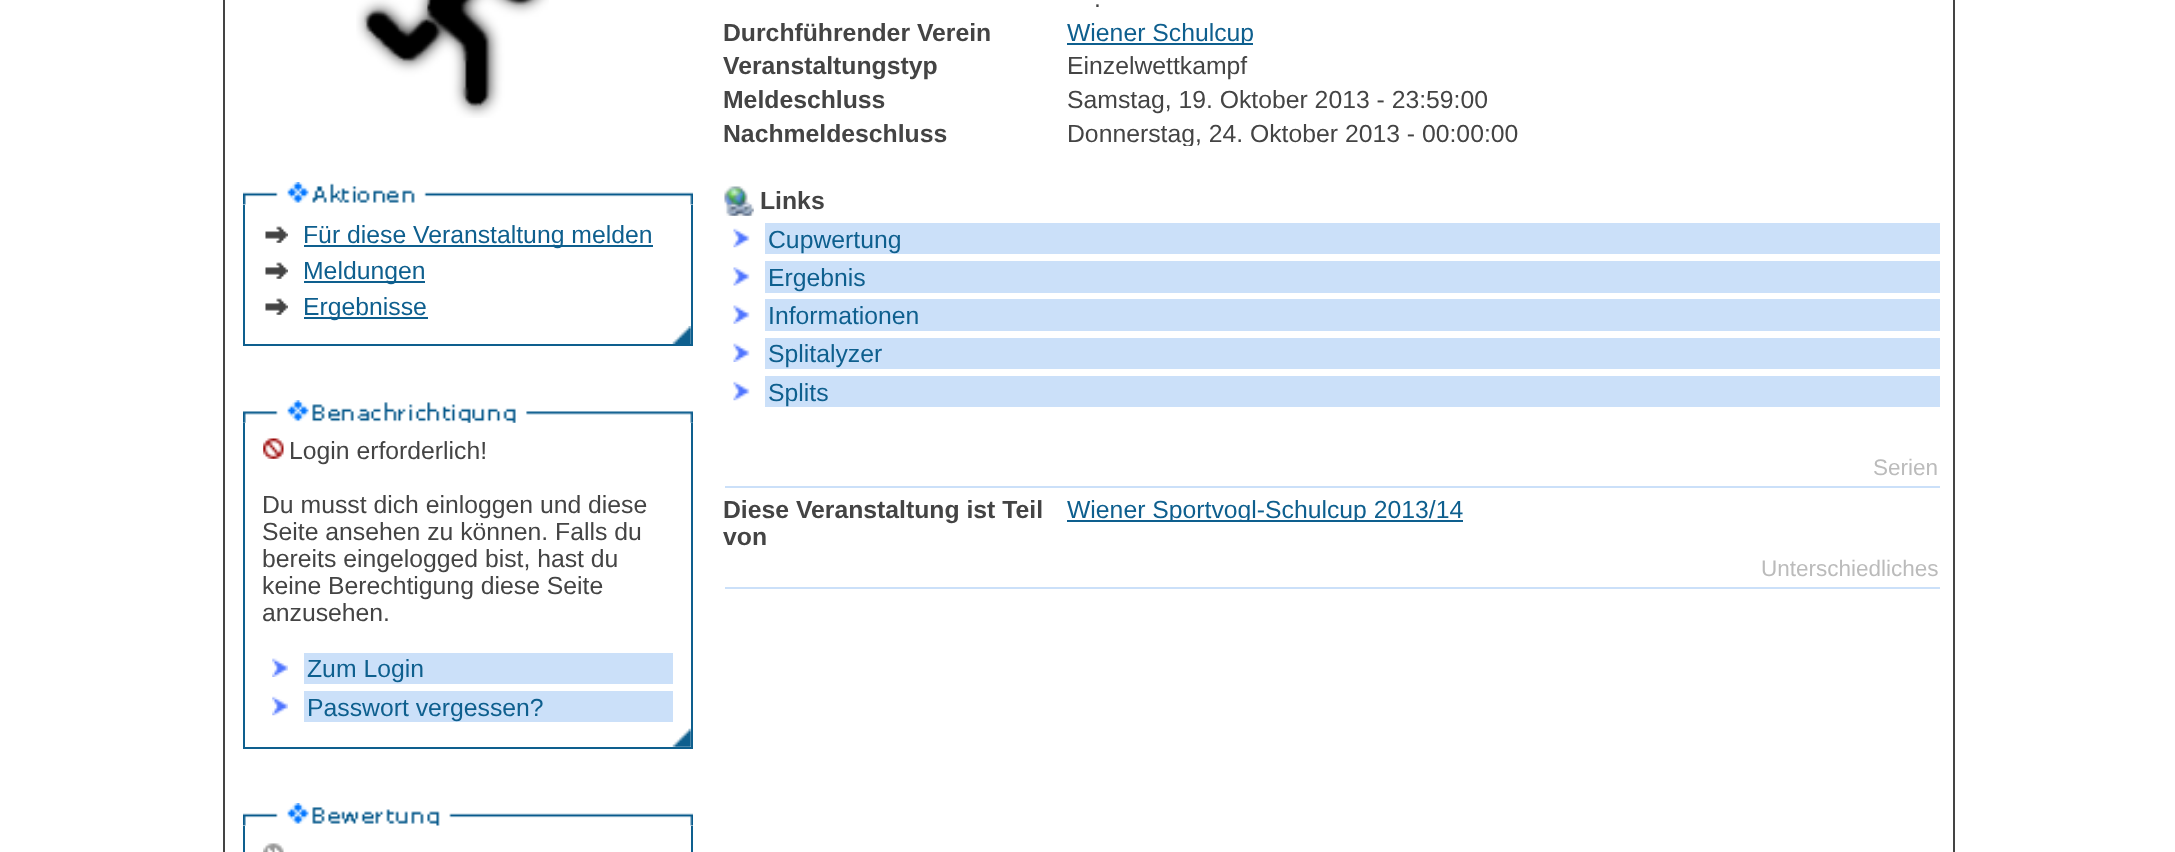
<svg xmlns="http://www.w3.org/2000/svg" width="2175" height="852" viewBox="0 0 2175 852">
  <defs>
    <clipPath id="clip1"><rect x="1067" y="18" width="873" height="27"/></clipPath>
    <clipPath id="clip2"><rect x="1067" y="119" width="873" height="27"/></clipPath>
    <clipPath id="clip3"><rect x="1067" y="495" width="873" height="27"/></clipPath>
  </defs>
  <rect width="100%" height="100%" fill="rgb(255,255,255)"/>
  <rect x="224" y="-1" width="1730" height="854" fill="none" stroke="rgb(68,68,68)" stroke-width="2"/>
  <image x="356" y="0" width="193" height="118" href="pic1.png"/>
  <image x="243" y="182" width="450" height="23" href="pic2.png"/>
  <rect x="243" y="205" width="2" height="139" fill="rgb(14,95,142)"/>
  <rect x="691" y="205" width="2" height="139" fill="rgb(14,95,142)"/>
  <image x="265" y="226" width="23" height="17" href="pic3.png"/>
  <rect x="304" y="245" width="349" height="2" fill="rgb(14,95,142)"/>
  <text x="303" y="243" font-family="Liberation Sans" font-size="24.75" fill="rgb(14,95,142)">Für diese Veranstaltung melden</text>
  <image x="265" y="262" width="23" height="17" href="pic4.png"/>
  <rect x="304" y="281" width="121" height="2" fill="rgb(14,95,142)"/>
  <text x="303" y="279" font-family="Liberation Sans" font-size="24.75" fill="rgb(14,95,142)">Meldungen</text>
  <image x="265" y="298" width="23" height="17" href="pic4.png"/>
  <rect x="304" y="317" width="124" height="2" fill="rgb(14,95,142)"/>
  <text x="303" y="315" font-family="Liberation Sans" font-size="24.75" fill="rgb(14,95,142)">Ergebnisse</text>
  <image x="672" y="326" width="19" height="18" href="pic5.png"/>
  <rect x="243" y="344" width="450" height="2" fill="rgb(14,95,142)"/>
  <image x="243" y="400" width="450" height="23" href="pic6.png"/>
  <rect x="243" y="423" width="2" height="324" fill="rgb(14,95,142)"/>
  <rect x="691" y="423" width="2" height="324" fill="rgb(14,95,142)"/>
  <image x="263" y="438" width="21" height="21" href="pic7.png"/>
  <g font-family="Liberation Sans" font-size="24.75" fill="rgb(68,68,68)">
    <text x="289" y="459">Login erforderlich!</text>
    <text>
      <tspan x="262" y="513">Du musst dich einloggen und diese</tspan>
      <tspan x="262" y="540">Seite ansehen zu können. Falls du</tspan>
      <tspan x="262" y="567">bereits eingelogged bist, hast du</tspan>
      <tspan x="262" y="594">keine Berechtigung diese Seite</tspan>
      <tspan x="262" y="621">anzusehen.</tspan>
    </text>
  </g>
  <image x="272" y="658" width="16" height="19" href="pic8.png"/>
  <rect x="304" y="653" width="369" height="31" fill="rgb(203,224,249)"/>
  <text x="307" y="677" font-family="Liberation Sans" font-size="24.75" fill="rgb(14,95,142)">Zum Login</text>
  <image x="272" y="696" width="16" height="20" href="pic9.png"/>
  <rect x="304" y="691" width="369" height="31" fill="rgb(203,224,249)"/>
  <text x="307" y="716" font-family="Liberation Sans" font-size="24.75" fill="rgb(14,95,142)">Passwort vergessen?</text>
  <image x="672" y="728" width="19" height="19" href="pic10.png"/>
  <rect x="243" y="747" width="450" height="2" fill="rgb(14,95,142)"/>
  <image x="243" y="803" width="450" height="23" href="pic11.png"/>
  <rect x="243" y="826" width="2" height="26" fill="rgb(14,95,142)"/>
  <rect x="691" y="826" width="2" height="26" fill="rgb(14,95,142)"/>
  <image x="263" y="843" width="21" height="9" href="pic12.png"/>
  <text x="1094" y="7" font-family="Liberation Sans" font-size="24.75" fill="rgb(68,68,68)">.</text>
  <text x="723" y="41" font-family="Liberation Sans" font-size="24.75" font-weight="bold" fill="rgb(68,68,68)">Durchführender Verein</text>
  <rect x="1067" y="43" width="186" height="2" fill="rgb(14,95,142)"/>
  <g clip-path="url(#clip1)">
    <text x="1067" y="41" font-family="Liberation Sans" font-size="24.75" fill="rgb(14,95,142)">Wiener Schulcup</text>
  </g>
  <text x="723" y="74" font-family="Liberation Sans" font-size="24.75" font-weight="bold" fill="rgb(68,68,68)">Veranstaltungstyp</text>
  <text x="1067" y="74" font-family="Liberation Sans" font-size="24.75" fill="rgb(68,68,68)">Einzelwettkampf</text>
  <text x="723" y="108" font-family="Liberation Sans" font-size="24.75" font-weight="bold" fill="rgb(68,68,68)">Meldeschluss</text>
  <text x="1067" y="108" font-family="Liberation Sans" font-size="24.75" fill="rgb(68,68,68)">Samstag, 19. Oktober 2013 - 23:59:00</text>
  <text x="723" y="142" font-family="Liberation Sans" font-size="24.75" font-weight="bold" fill="rgb(68,68,68)">Nachmeldeschluss</text>
  <g clip-path="url(#clip2)">
    <text x="1067" y="142" font-family="Liberation Sans" font-size="24.75" fill="rgb(68,68,68)">Donnerstag, 24. Oktober 2013 - 00:00:00</text>
  </g>
  <image x="724" y="186" width="30" height="30" href="pic13.png"/>
  <text x="760" y="209" font-family="Liberation Sans" font-size="24.75" font-weight="bold" fill="rgb(68,68,68)">Links</text>
  <image x="733" y="228" width="17" height="20" href="pic14.png"/>
  <rect x="765" y="223" width="1175" height="31" fill="rgb(203,224,249)"/>
  <text x="768" y="248" font-family="Liberation Sans" font-size="24.75" fill="rgb(14,95,142)">Cupwertung</text>
  <image x="733" y="267" width="17" height="19" href="pic15.png"/>
  <rect x="765" y="261" width="1175" height="32" fill="rgb(203,224,249)"/>
  <text x="768" y="286" font-family="Liberation Sans" font-size="24.75" fill="rgb(14,95,142)">Ergebnis</text>
  <image x="733" y="305" width="17" height="19" href="pic16.png"/>
  <rect x="765" y="299" width="1175" height="32" fill="rgb(203,224,249)"/>
  <text x="768" y="324" font-family="Liberation Sans" font-size="24.75" fill="rgb(14,95,142)">Informationen</text>
  <image x="733" y="343" width="17" height="19" href="pic17.png"/>
  <rect x="765" y="338" width="1175" height="31" fill="rgb(203,224,249)"/>
  <text x="768" y="362" font-family="Liberation Sans" font-size="24.75" fill="rgb(14,95,142)">Splitalyzer</text>
  <image x="733" y="381" width="17" height="20" href="pic18.png"/>
  <rect x="765" y="376" width="1175" height="31" fill="rgb(203,224,249)"/>
  <text x="768" y="401" font-family="Liberation Sans" font-size="24.75" fill="rgb(14,95,142)">Splits</text>
  <text x="1873" y="475" font-family="Liberation Sans" font-size="22.5" fill="rgb(187,187,187)">Serien</text>
  <rect x="725" y="486" width="1215" height="2" fill="rgb(203,224,249)"/>
  <g font-family="Liberation Sans" font-size="24.75" font-weight="bold" fill="rgb(68,68,68)">
    <text>
      <tspan x="723" y="518">Diese Veranstaltung ist Teil</tspan>
      <tspan x="723" y="545">von</tspan>
    </text>
  </g>
  <rect x="1067" y="520" width="396" height="2" fill="rgb(14,95,142)"/>
  <g clip-path="url(#clip3)">
    <text x="1067" y="518" font-family="Liberation Sans" font-size="24.75" fill="rgb(14,95,142)">Wiener Sportvogl-Schulcup 2013/14</text>
  </g>
  <text x="1761" y="576" font-family="Liberation Sans" font-size="22.5" fill="rgb(187,187,187)">Unterschiedliches</text>
  <rect x="725" y="587" width="1215" height="2" fill="rgb(203,224,249)"/>
</svg>
